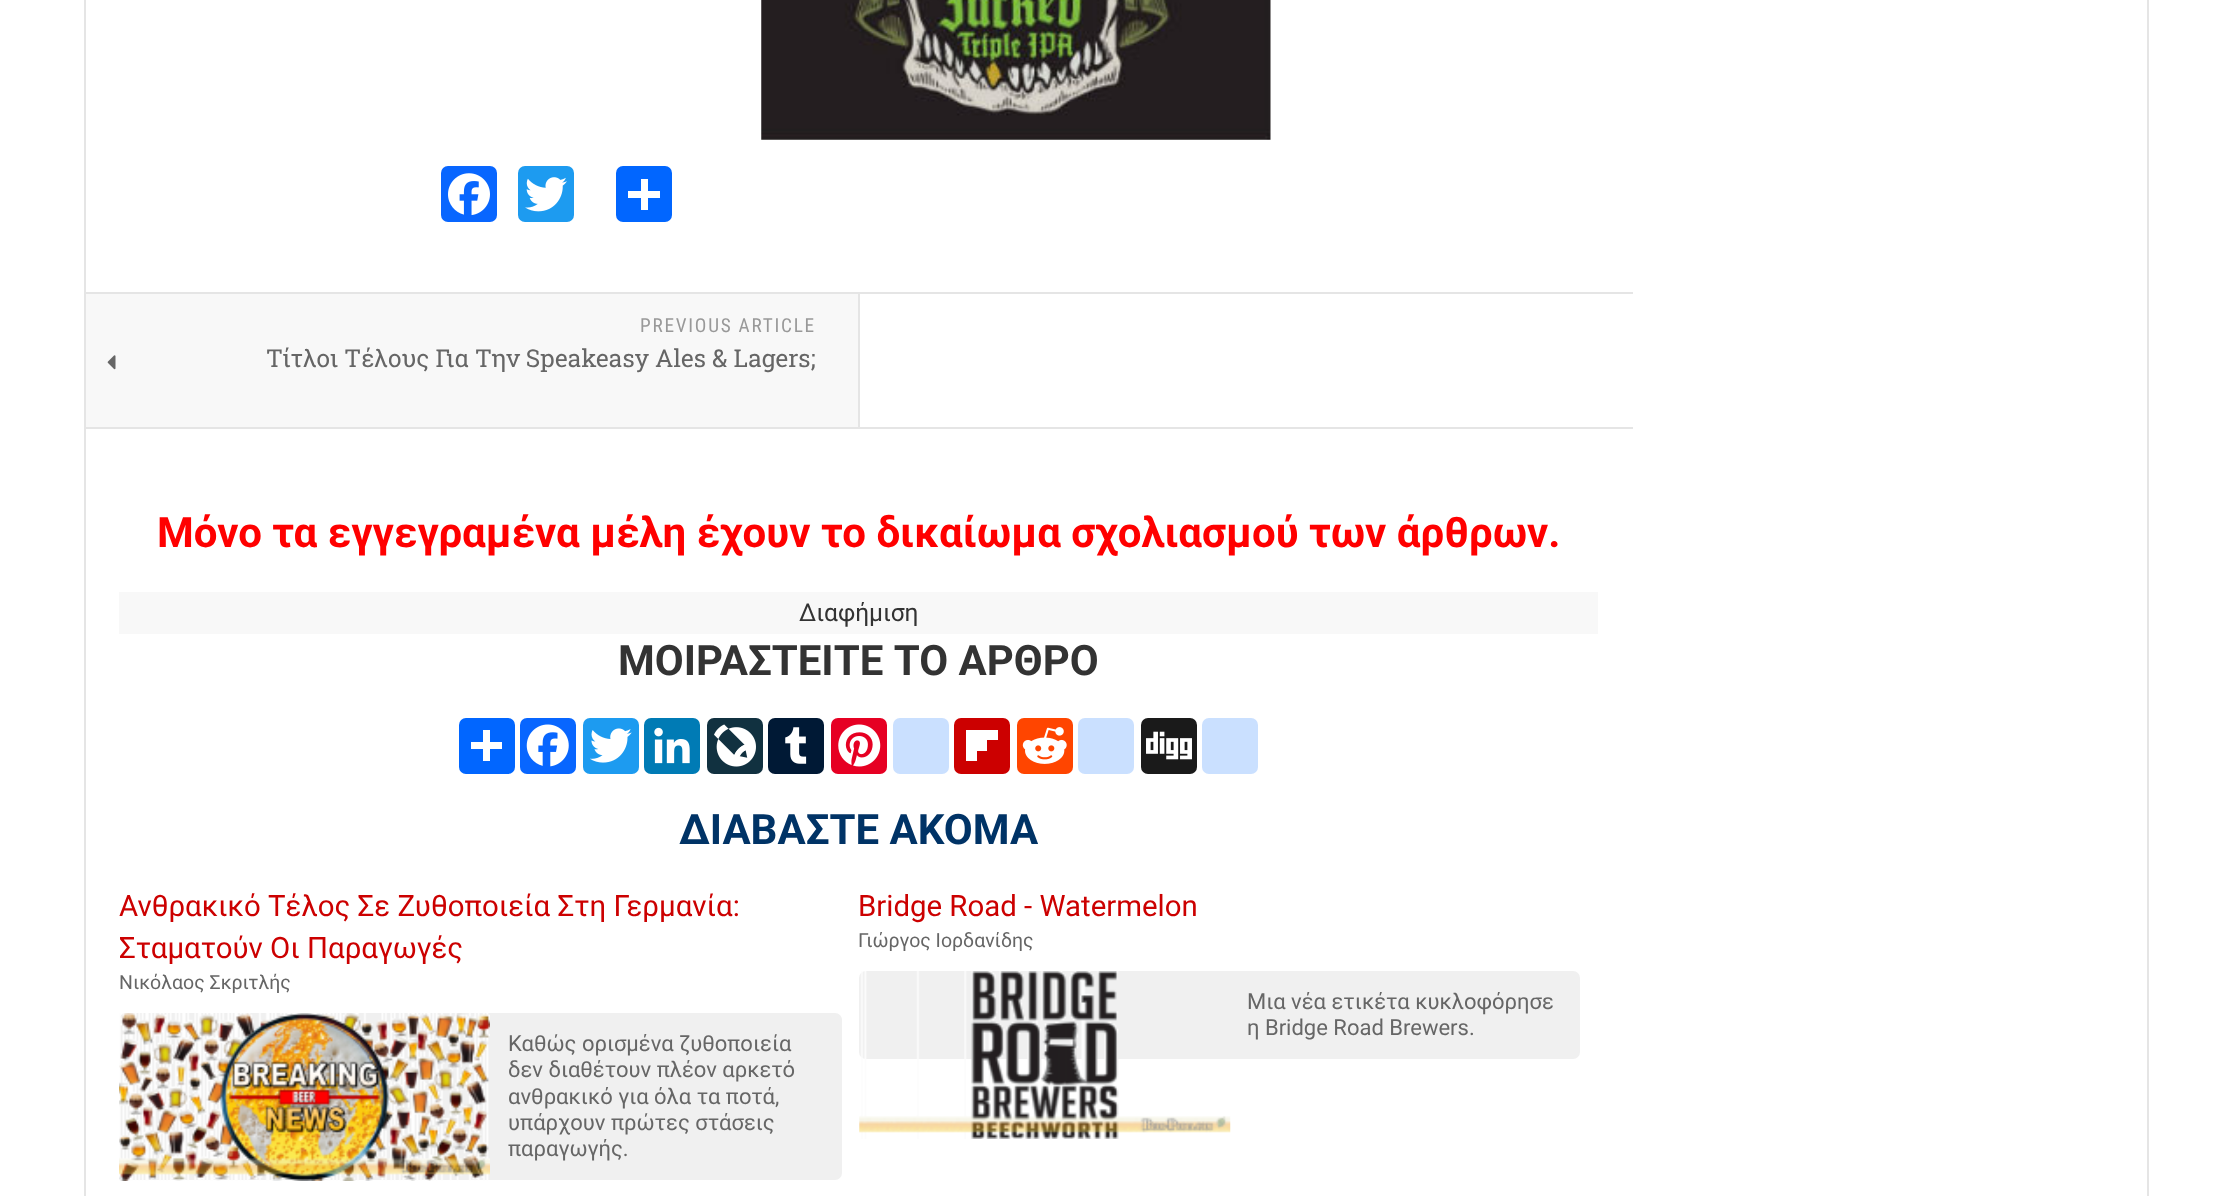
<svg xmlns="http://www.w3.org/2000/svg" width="2232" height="1196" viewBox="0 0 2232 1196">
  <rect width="100%" height="100%" fill="rgb(255,255,255)"/>
  <rect x="85" y="-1" width="2063" height="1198" fill="none" stroke="rgb(229,229,229)" stroke-width="2"/>
  <image x="761" y="0" width="510" height="140" href="pic1.png"/>
  <rect x="441" y="166" width="56" height="56" rx="7" fill="rgb(8,102,255)"/>
  <image x="448" y="173" width="42" height="43" href="pic2.png"/>
  <rect x="518" y="166" width="56" height="56" rx="7" fill="rgb(29,155,240)"/>
  <image x="525" y="177" width="42" height="35" href="pic3.png"/>
  <rect x="616" y="166" width="56" height="56" rx="7" fill="rgb(1,102,255)"/>
  <rect x="641" y="179" width="7" height="31" fill="rgb(255,255,255)"/>
  <rect x="628" y="191" width="32" height="7" fill="rgb(255,255,255)"/>
  <rect x="84" y="292" width="1549" height="2" fill="rgb(229,229,229)"/>
  <rect x="84" y="427" width="1549" height="2" fill="rgb(229,229,229)"/>
  <rect x="858" y="294" width="2" height="133" fill="rgb(229,229,229)"/>
  <rect x="86" y="294" width="772" height="133" fill="rgb(248,248,248)"/>
  <text x="640" y="332" font-family="Roboto Condensed" font-size="19.25" letter-spacing="1.75" fill="rgb(153,153,153)">PREVIOUS ARTICLE</text>
  <image x="107" y="355" width="9" height="15" href="pic4.png"/>
  <text x="266" y="367" font-family="Roboto Slab" font-size="24.5" fill="rgb(102,102,102)">Τίτλοι Τέλους Για Την Speakeasy Ales &amp; Lagers;</text>
  <text x="157" y="547" font-family="Roboto" font-size="42" font-weight="bold" fill="rgb(255,0,0)">Μόνο τα εγγεγραμένα μέλη έχουν το δικαίωμα σχολιασμού των άρθρων.</text>
  <rect x="119" y="592" width="1479" height="42" fill="rgb(248,248,248)"/>
  <text x="799" y="621" font-family="Roboto" font-size="24.5" fill="rgb(51,51,51)">Διαφήμιση</text>
  <text x="618" y="675" font-family="Roboto" font-size="42" font-weight="bold" fill="rgb(51,51,51)">ΜΟΙΡΑΣΤΕΙΤΕ ΤΟ ΑΡΘΡΟ</text>
  <rect x="459" y="718" width="56" height="56" rx="7" fill="rgb(1,102,255)"/>
  <rect x="483" y="730" width="7" height="31" fill="rgb(255,255,255)"/>
  <rect x="471" y="742" width="31" height="7" fill="rgb(255,255,255)"/>
  <rect x="520" y="718" width="56" height="56" rx="7" fill="rgb(8,102,255)"/>
  <image x="526" y="724" width="43" height="43" href="pic5.png"/>
  <rect x="583" y="718" width="56" height="56" rx="7" fill="rgb(29,155,240)"/>
  <image x="590" y="728" width="42" height="35" href="pic6.png"/>
  <rect x="644" y="718" width="56" height="56" rx="7" fill="rgb(0,123,181)"/>
  <image x="654" y="727" width="36" height="37" href="pic7.png"/>
  <rect x="707" y="718" width="56" height="56" rx="7" fill="rgb(17,49,64)"/>
  <image x="714" y="724" width="42" height="43" href="pic8.png"/>
  <rect x="768" y="718" width="56" height="56" rx="7" fill="rgb(0,25,53)"/>
  <image x="785" y="727" width="22" height="37" href="pic9.png"/>
  <rect x="831" y="718" width="56" height="56" rx="7" fill="rgb(230,0,35)"/>
  <image x="838" y="724" width="43" height="43" href="pic10.png"/>
  <rect x="893" y="718" width="56" height="56" rx="7" fill="rgb(202,224,255)"/>
  <rect x="954" y="718" width="56" height="56" rx="7" fill="rgb(204,0,0)"/>
  <rect x="977" y="740" width="10" height="11" fill="rgb(255,255,255)"/>
  <rect x="977" y="730" width="21" height="10" fill="rgb(255,255,255)"/>
  <rect x="966" y="730" width="11" height="31" fill="rgb(255,255,255)"/>
  <rect x="1017" y="718" width="56" height="56" rx="7" fill="rgb(255,69,0)"/>
  <image x="1022" y="727" width="45" height="37" href="pic11.png"/>
  <rect x="1078" y="718" width="56" height="56" rx="7" fill="rgb(202,224,255)"/>
  <rect x="1141" y="718" width="56" height="56" rx="7" fill="rgb(26,26,26)"/>
  <image x="1146" y="731" width="46" height="29" href="pic12.png"/>
  <rect x="1202" y="718" width="56" height="56" rx="7" fill="rgb(202,224,255)"/>
  <text x="679" y="844" font-family="Roboto" font-size="42" font-weight="bold" fill="rgb(0,51,102)">ΔΙΑΒΑΣΤΕ ΑΚΟΜΑ</text>
  <g font-family="Roboto" font-size="29.4" fill="rgb(204,0,0)">
    <text>
      <tspan x="119" y="916">Ανθρακικό Τέλος Σε Ζυθοποιεία Στη Γερμανία:</tspan>
      <tspan x="119" y="958">Σταματούν Οι Παραγωγές</tspan>
    </text>
  </g>
  <text x="119" y="989" font-family="Roboto" font-size="19.5" fill="rgb(102,102,102)">Νικόλαος Σκριτλής</text>
  <rect x="119" y="1013" width="723" height="167" rx="7" fill="rgb(240,240,240)"/>
  <image x="119" y="1013" width="371" height="168" href="pic13.png"/>
  <g font-family="Roboto" font-size="22" fill="rgb(102,102,102)">
    <text>
      <tspan x="508" y="1051">Καθώς ορισμένα ζυθοποιεία</tspan>
      <tspan x="508" y="1077">δεν διαθέτουν πλέον αρκετό</tspan>
      <tspan x="508" y="1104">ανθρακικό για όλα τα ποτά,</tspan>
      <tspan x="508" y="1130">υπάρχουν πρώτες στάσεις</tspan>
      <tspan x="508" y="1156">παραγωγής.</tspan>
    </text>
  </g>
  <text x="858" y="916" font-family="Roboto" font-size="29.4" fill="rgb(204,0,0)">Bridge Road - Watermelon</text>
  <text x="858" y="947" font-family="Roboto" font-size="19.5" fill="rgb(102,102,102)">Γιώργος Ιορδανίδης</text>
  <rect x="859" y="971" width="721" height="88" rx="7" fill="rgb(240,240,240)"/>
  <image x="859" y="971" width="372" height="168" href="pic14.png"/>
  <g font-family="Roboto" font-size="22" fill="rgb(102,102,102)">
    <text>
      <tspan x="1247" y="1009">Μια νέα ετικέτα κυκλοφόρησε</tspan>
      <tspan x="1247" y="1035">η Bridge Road Brewers.</tspan>
    </text>
  </g>
</svg>
